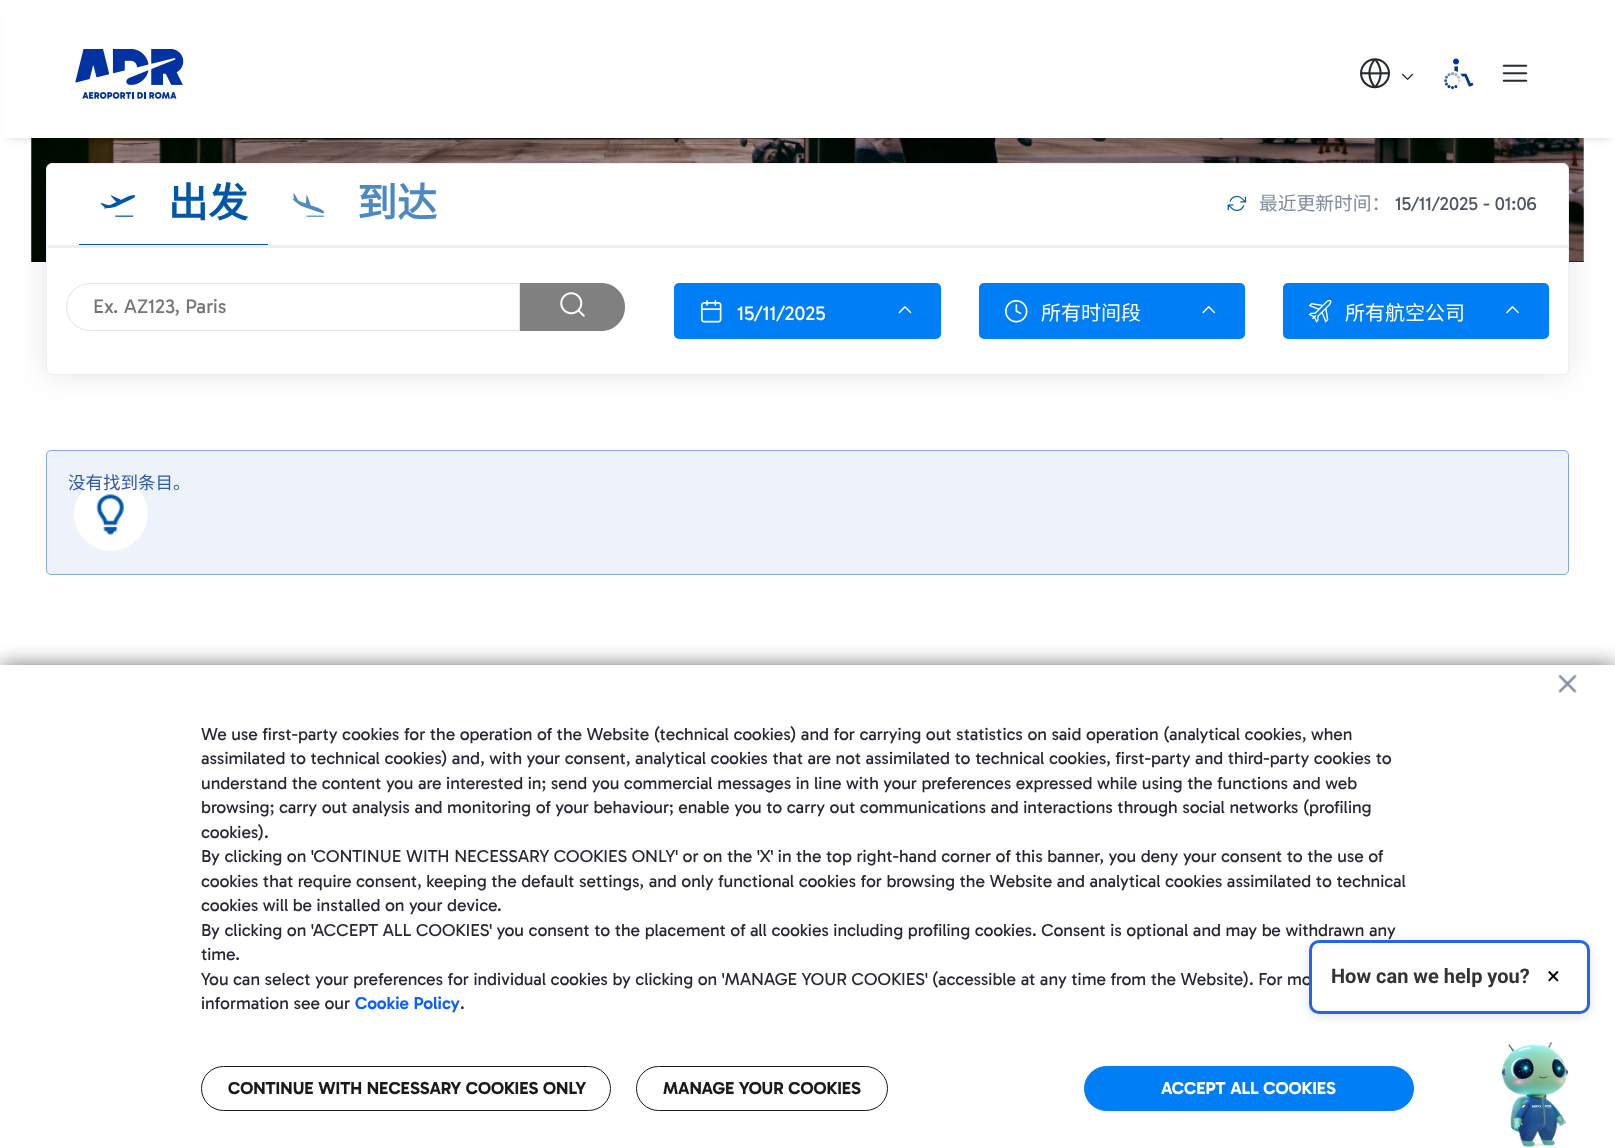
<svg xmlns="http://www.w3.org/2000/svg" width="1615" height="1148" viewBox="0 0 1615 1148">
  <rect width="100%" height="100%" fill="rgb(255,255,255)"/>
  <image x="31" y="138" width="1553" height="124" href="pic6.png"/>
  <rect x="8" y="13" width="1602" height="125" fill="rgba(0,0,0,0.16)" filter="blur(4px)"/>
  <rect x="46" y="163" width="1523" height="212" rx="6" fill="rgba(0,0,0,0.1)" filter="blur(15px)"/>
  <rect x="2" y="7" width="1613" height="131" fill="rgb(255,255,255)"/>
  <image x="75" y="49" width="109" height="50" href="pic1.png"/>
  <image x="1360" y="58" width="30" height="31" href="pic2.png"/>
  <image x="1401" y="73" width="13" height="7" href="pic3.png"/>
  <image x="1444" y="58" width="30" height="32" href="pic4.png"/>
  <image x="1502" y="64" width="26" height="18" href="pic5.png"/>
  <rect x="46.5" y="163.5" width="1522" height="211" rx="5.5" fill="rgb(255,255,255)" stroke="rgb(237,239,243)"/>
  <rect x="48" y="245" width="1520" height="3" fill="rgb(237,239,243)"/>
  <rect x="79" y="244" width="189" height="1" fill="rgb(0,87,167)"/>
  <image x="100" y="195" width="36" height="22" href="pic7.png"/>
  <text x="168" y="217" font-family="Noto Sans CJK SC" font-size="40" font-weight="bold" fill="rgb(0,87,167)">出发</text>
  <image x="292" y="193" width="33" height="24" href="pic8.png"/>
  <text x="357" y="217" font-family="Noto Sans CJK SC" font-size="40" font-weight="bold" fill="rgb(77,137,193)">到达</text>
  <image x="1227" y="195" width="20" height="16" href="pic9.png"/>
  <text x="1259" y="210" font-family="Noto Sans CJK SC" font-size="18.75" fill="rgb(129,141,156)">最近更新时间：</text>
  <text x="1395" y="210" font-family="Gabarito" font-size="18.75" fill="rgb(76,85,96)">15/11/2025 - 01:06</text>
  <path d="M90 283.5H519.5V330.5H90C77 330.5 66.5 320 66.5 307C66.5 294 77 283.5 90 283.5Z" fill="none" stroke="rgb(224,227,232)"/>
  <text x="93" y="313" font-family="Gabarito" font-size="20" fill="rgb(117,117,117)">Ex. AZ123, Paris</text>
  <path d="M520 283H601C614.5 283 625 293.5 625 307C625 320.5 614.5 331 601 331H520Z" fill="rgb(128,128,128)"/>
  <image x="560" y="292" width="25" height="25" href="pic10.png"/>
  <rect x="674" y="283" width="267" height="56" rx="5" fill="rgb(0,126,246)"/>
  <image x="701" y="300" width="21" height="23" href="pic11.png"/>
  <text x="737" y="320" font-family="Gabarito" font-size="20" fill="rgb(255,255,255)">15/11/2025</text>
  <image x="898" y="306" width="14" height="8" href="pic12.png"/>
  <rect x="979" y="283" width="266" height="56" rx="5" fill="rgb(0,126,246)"/>
  <image x="1005" y="300" width="23" height="23" href="pic13.png"/>
  <text x="1041" y="320" font-family="Noto Sans CJK SC" font-size="20" fill="rgb(255,255,255)">所有时间段</text>
  <image x="1202" y="306" width="13" height="8" href="pic14.png"/>
  <rect x="1283" y="283" width="266" height="56" rx="5" fill="rgb(0,126,246)"/>
  <image x="1308" y="299" width="24" height="24" href="pic15.png"/>
  <text x="1345" y="320" font-family="Noto Sans CJK SC" font-size="20" fill="rgb(255,255,255)">所有航空公司</text>
  <image x="1506" y="306" width="13" height="8" href="pic16.png"/>
  <rect x="46" y="450" width="1523" height="125" rx="5" fill="rgb(238,242,250)"/>
  <image x="74" y="477" width="74" height="74" href="pic17.png"/>
  <rect x="46.5" y="450.5" width="1522" height="124" rx="4.5" fill="none" stroke="rgb(137,167,224)"/>
  <text x="68" y="489" font-family="Noto Sans CJK SC" font-size="17.5" fill="rgb(46,90,172)">没有找到条目。</text>
  <rect x="1" y="664" width="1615" height="484" fill="rgba(0,0,0,0.5)" filter="blur(10px)"/>
  <rect x="0" y="665" width="1615" height="483" fill="rgb(255,255,255)"/>
  <image x="1558" y="674" width="19" height="19" href="pic18.png"/>
  <g font-family="Gabarito" font-size="17.5" fill="rgb(39,40,51)">
    <text>
      <tspan x="201" y="740">We use first-party cookies for the operation of the Website (technical cookies) and for carrying out statistics on said operation (analytical cookies, when</tspan>
      <tspan x="201" y="764">assimilated to technical cookies) and, with your consent, analytical cookies that are not assimilated to technical cookies, first-party and third-party cookies to</tspan>
      <tspan x="201" y="789">understand the content you are interested in; send you commercial messages in line with your preferences expressed while using the functions and web</tspan>
      <tspan x="201" y="813">browsing; carry out analysis and monitoring of your behaviour; enable you to carry out communications and interactions through social networks (profiling</tspan>
      <tspan x="201" y="838">cookies).</tspan>
      <tspan x="201" y="862">By clicking on 'CONTINUE WITH NECESSARY COOKIES ONLY' or on the 'X' in the top right-hand corner of this banner, you deny your consent to the use of</tspan>
      <tspan x="201" y="887">cookies that require consent, keeping the default settings, and only functional cookies for browsing the Website and analytical cookies assimilated to technical</tspan>
      <tspan x="201" y="911">cookies will be installed on your device.</tspan>
      <tspan x="201" y="936">By clicking on 'ACCEPT ALL COOKIES' you consent to the placement of all cookies including profiling cookies. Consent is optional and may be withdrawn any</tspan>
      <tspan x="201" y="960">time.</tspan>
      <tspan x="201" y="985">You can select your preferences for individual cookies by clicking on 'MANAGE YOUR COOKIES' (accessible at any time from the Website). For mo</tspan>
      <tspan x="201" y="1009">information see our</tspan>
    </text>
  </g>
  <text x="355" y="1009" font-family="Gabarito" font-size="17.5" font-weight="600" fill="rgb(11,95,255)">Cookie Policy</text>
  <text x="460" y="1009" font-family="Gabarito" font-size="17.5" fill="rgb(39,40,51)">.</text>
  <rect x="201.5" y="1066.5" width="409" height="44" rx="22" fill="none" stroke="rgb(26,26,26)"/>
  <text x="228" y="1094" font-family="Gabarito" font-size="17.5" font-weight="bold" fill="rgb(26,26,26)">CONTINUE WITH NECESSARY COOKIES ONLY</text>
  <rect x="636.5" y="1066.5" width="251" height="44" rx="22" fill="none" stroke="rgb(26,26,26)"/>
  <text x="663" y="1094" font-family="Gabarito" font-size="17.5" font-weight="bold" fill="rgb(26,26,26)">MANAGE YOUR COOKIES</text>
  <rect x="1084.5" y="1066.5" width="329" height="44" rx="22" fill="rgb(0,126,246)" stroke="rgb(0,126,246)"/>
  <text x="1161" y="1094" font-family="Gabarito" font-size="17.5" font-weight="bold" fill="rgb(255,255,255)">ACCEPT ALL COOKIES</text>
  <rect x="1309" y="943" width="281" height="73" rx="10" fill="rgba(0,0,0,0.12)" filter="blur(5px)"/>
  <rect x="1310.5" y="941.5" width="278" height="71" rx="8.5" fill="rgb(255,255,255)" stroke="rgb(37,99,235)" stroke-width="3"/>
  <text x="1331" y="983" font-family="Roboto" font-size="20" font-weight="bold" fill="rgb(51,51,51)">How can we help you?</text>
  <text x="1547" y="984" font-family="Roboto" font-size="24" fill="rgb(0,0,0)">×</text>
  <image x="1501" y="1042" width="68" height="105" href="pic19.png"/>
</svg>
